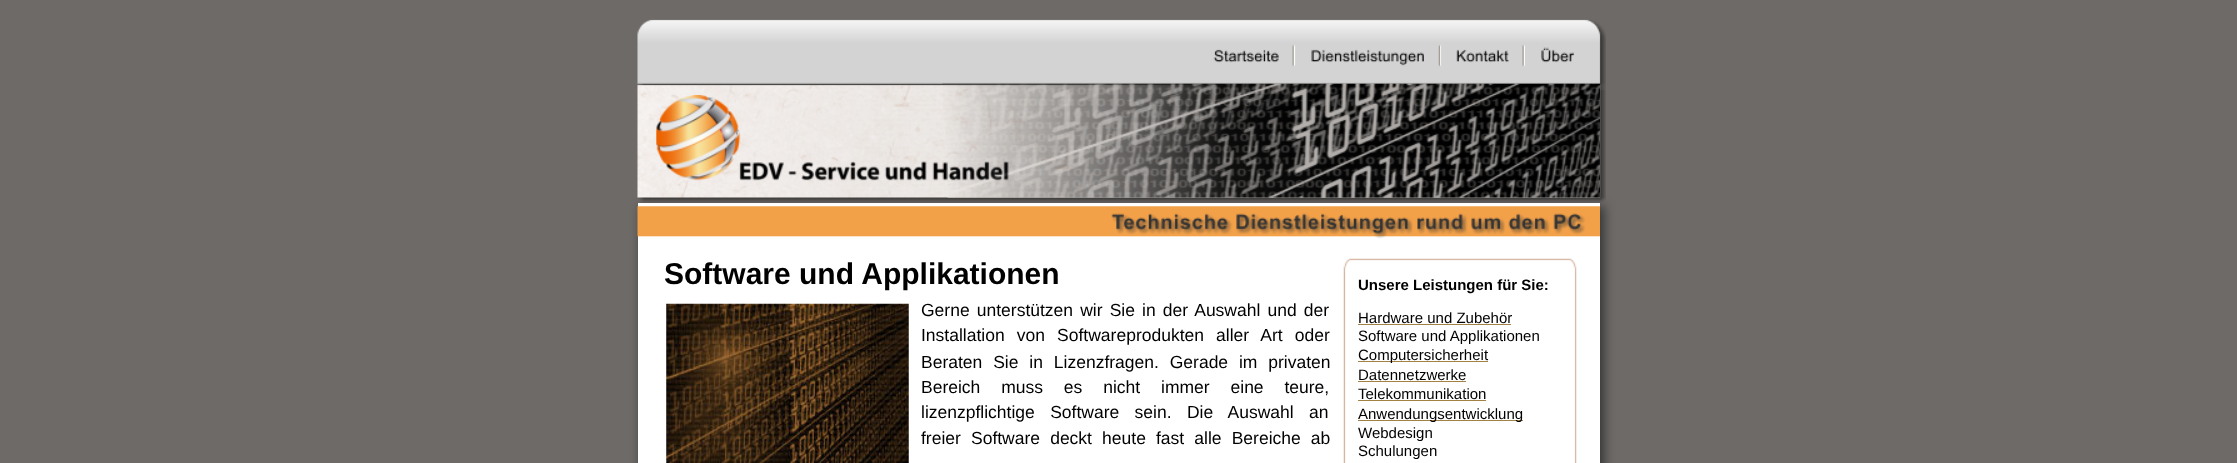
<svg xmlns="http://www.w3.org/2000/svg" width="2237" height="463" viewBox="0 0 2237 463">
  <rect width="100%" height="100%" fill="rgb(109,106,104)"/>
  <rect x="641" y="206" width="963" height="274" fill="rgba(0,0,0,0.51)" filter="blur(5.5px)"/>
  <rect x="638" y="203" width="962" height="260" fill="rgb(255,255,255)"/>
  <image x="637" y="19" width="969" height="184" href="pic1.png"/>
  <image x="1213" y="45" width="83" height="22" href="pic2.png"/>
  <image x="1311" y="45" width="131" height="22" href="pic3.png"/>
  <image x="1441" y="45" width="85" height="22" href="pic4.png"/>
  <image x="1525" y="46" width="50" height="19" href="pic5.png"/>
  <image x="656" y="95" width="291" height="86" href="pic6.png"/>
  <image x="942" y="83" width="658" height="115" href="pic7.png"/>
  <image x="637" y="206" width="963" height="33" href="pic8.png"/>
  <text x="664" y="284" font-family="Liberation Sans" font-size="30" font-weight="bold" fill="rgb(0,0,0)">Software und Applikationen</text>
  <g font-family="Liberation Sans" font-size="17.5" fill="rgb(0,0,0)">
    <text>
      <tspan x="921" y="316" word-spacing="2.25">Gerne unterstützen wir Sie in der Auswahl und der</tspan>
      <tspan x="921" y="341" word-spacing="7.25">Installation von Softwareprodukten aller Art oder</tspan>
      <tspan x="921" y="368" word-spacing="6">Beraten Sie in Lizenzfragen. Gerade im privaten</tspan>
      <tspan x="921" y="393" word-spacing="16">Bereich muss es nicht immer eine teure,</tspan>
      <tspan x="921" y="418" word-spacing="10.5">lizenzpflichtige Software sein. Die Auswahl an</tspan>
      <tspan x="921" y="444" word-spacing="5.25">freier Software deckt heute fast alle Bereiche ab</tspan>
    </text>
  </g>
  <image x="1343" y="258" width="234" height="205" href="pic9.png"/>
  <image x="666" y="303" width="243" height="160" href="pic10.png"/>
  <text x="1358" y="290" font-family="Liberation Sans" font-size="15" font-weight="bold" fill="rgb(0,0,0)">Unsere Leistungen für Sie:</text>
  <text x="1358" y="323" font-family="Liberation Sans" font-size="15" fill="rgb(0,0,0)">Hardware und Zubehör</text>
  <rect x="1358" y="324" width="153" height="1" fill="rgb(162,129,69)"/>
  <text x="1358" y="341" font-family="Liberation Sans" font-size="15" fill="rgb(0,0,0)">Software und Applikationen</text>
  <rect x="1358" y="361" width="130" height="1" fill="rgb(162,129,69)"/>
  <g font-family="Liberation Sans" font-size="15" fill="rgb(0,0,0)">
    <text>
      <tspan x="1358" y="360">Computersicherheit</tspan>
      <tspan x="1358" y="380">Datennetzwerke</tspan>
    </text>
  </g>
  <rect x="1358" y="381" width="108" height="1" fill="rgb(162,129,69)"/>
  <text x="1358" y="399" font-family="Liberation Sans" font-size="15" fill="rgb(0,0,0)">Telekommunikation</text>
  <rect x="1358" y="400" width="128" height="1" fill="rgb(162,129,69)"/>
  <rect x="1358" y="420" width="165" height="1" fill="rgb(162,129,69)"/>
  <g font-family="Liberation Sans" font-size="15" fill="rgb(0,0,0)">
    <text>
      <tspan x="1358" y="419">Anwendungsentwicklung</tspan>
      <tspan x="1358" y="438">Webdesign</tspan>
      <tspan x="1358" y="456">Schulungen</tspan>
    </text>
  </g>
</svg>
